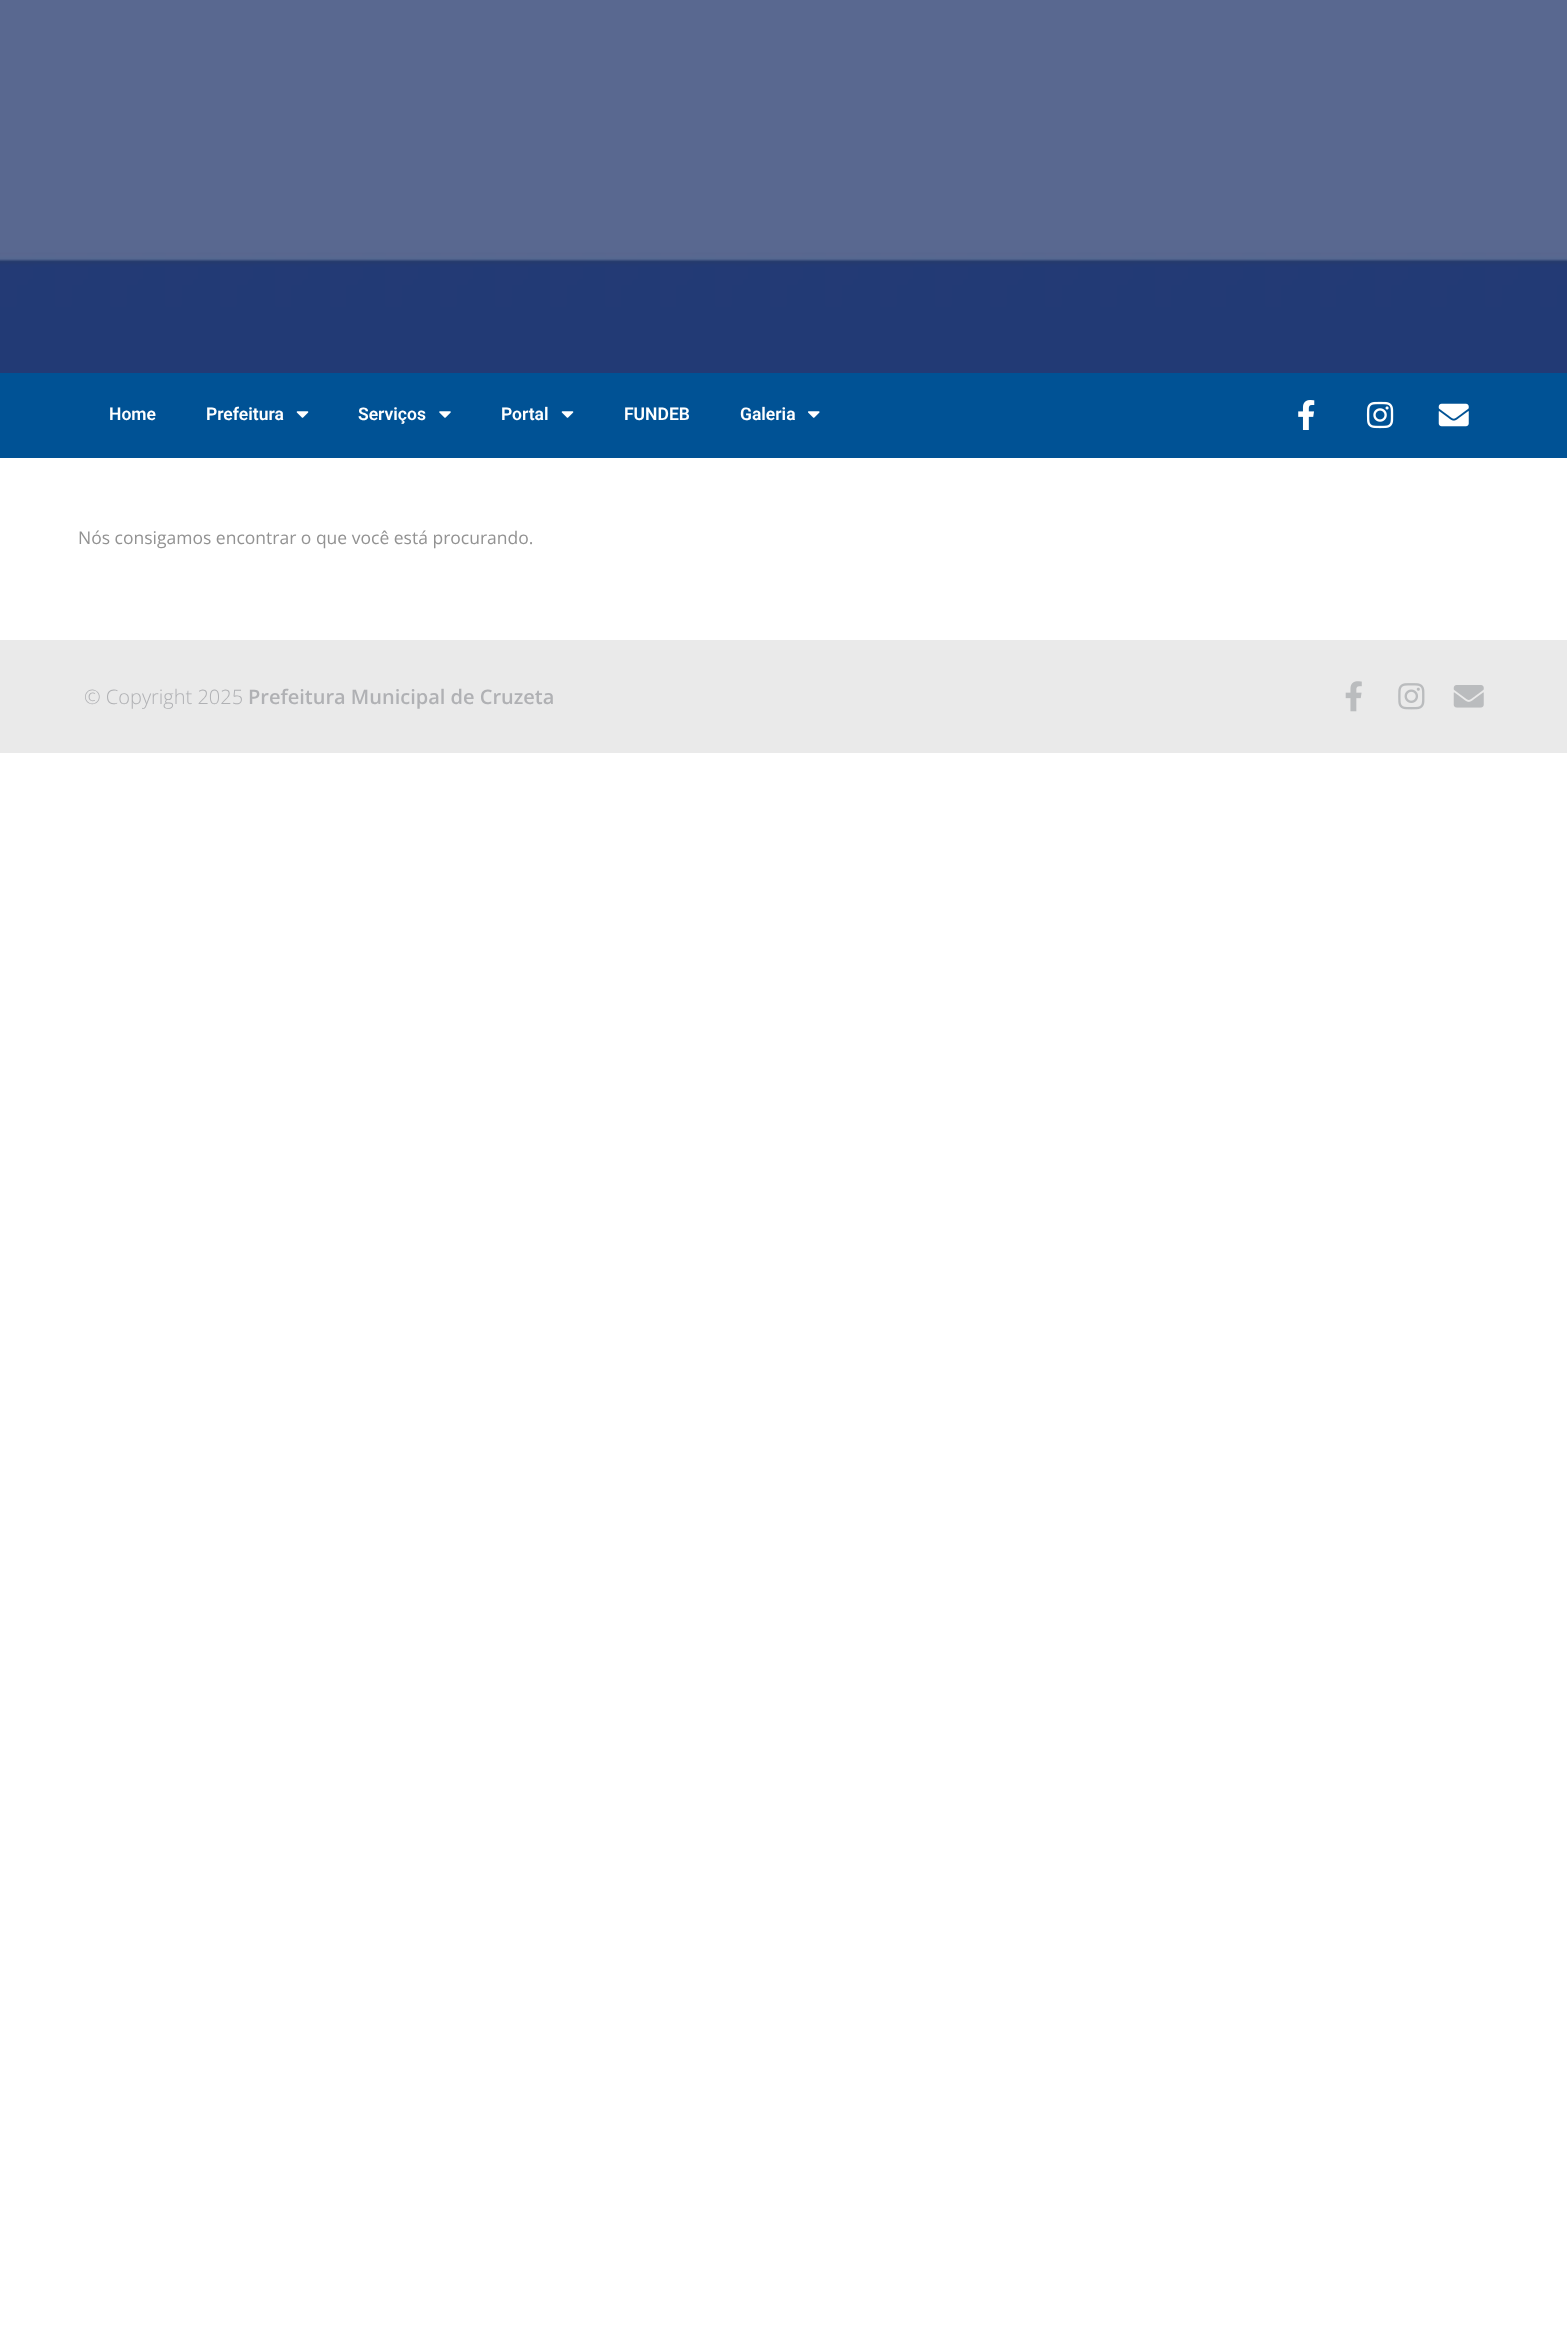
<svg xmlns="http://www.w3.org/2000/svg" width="1567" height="2336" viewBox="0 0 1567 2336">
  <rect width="100%" height="100%" fill="rgb(255,255,255)"/>
  <image x="0" y="252" width="1567" height="121" href="pic1.png"/>
  <rect x="0" y="0" width="1567" height="373" fill="rgba(194,203,210,0.33)"/>
  <rect x="0" y="0" width="1567" height="373" fill="rgba(0,21,86,0.62)"/>
  <rect x="0" y="373" width="1567" height="85" fill="rgb(0,82,149)"/>
  <g font-family="Roboto" font-size="17.5" font-weight="600" fill="rgb(255,255,255)">
    <text x="109" y="420">Home</text>
    <text x="206" y="420">Prefeitura</text>
  </g>
  <image x="296" y="411" width="13" height="7" href="pic2.png"/>
  <text x="358" y="420" font-family="Roboto" font-size="17.5" font-weight="600" fill="rgb(255,255,255)">Serviços</text>
  <image x="439" y="411" width="12" height="7" href="pic3.png"/>
  <text x="501" y="420" font-family="Roboto" font-size="17.5" font-weight="600" fill="rgb(255,255,255)">Portal</text>
  <image x="561" y="411" width="13" height="7" href="pic2.png"/>
  <g font-family="Roboto" font-size="17.5" font-weight="600" fill="rgb(255,255,255)">
    <text x="624" y="420">FUNDEB</text>
    <text x="740" y="420">Galeria</text>
  </g>
  <image x="808" y="411" width="12" height="7" href="pic4.png"/>
  <image x="1298" y="400" width="17" height="30" href="pic5.png"/>
  <image x="1366" y="401" width="28" height="28" href="pic6.png"/>
  <image x="1438" y="403" width="31" height="24" href="pic7.png"/>
  <text x="78" y="544" font-family="Open Sans" font-size="17.5" fill="rgb(146,146,146)">Nós consigamos encontrar o que você está procurando.</text>
  <rect x="0" y="640" width="1567" height="113" fill="rgb(234,234,234)"/>
  <text x="84" y="704" font-family="Open Sans" font-size="20" font-weight="300" fill="rgb(176,177,180)">© Copyright 2025</text>
  <text x="248" y="704" font-family="Open Sans" font-size="20" font-weight="600" fill="rgb(176,177,180)">Prefeitura Municipal de Cruzeta</text>
  <image x="1345" y="681" width="17" height="31" href="pic8.png"/>
  <image x="1398" y="683" width="27" height="27" href="pic9.png"/>
  <image x="1453" y="685" width="31" height="23" href="pic10.png"/>
</svg>
